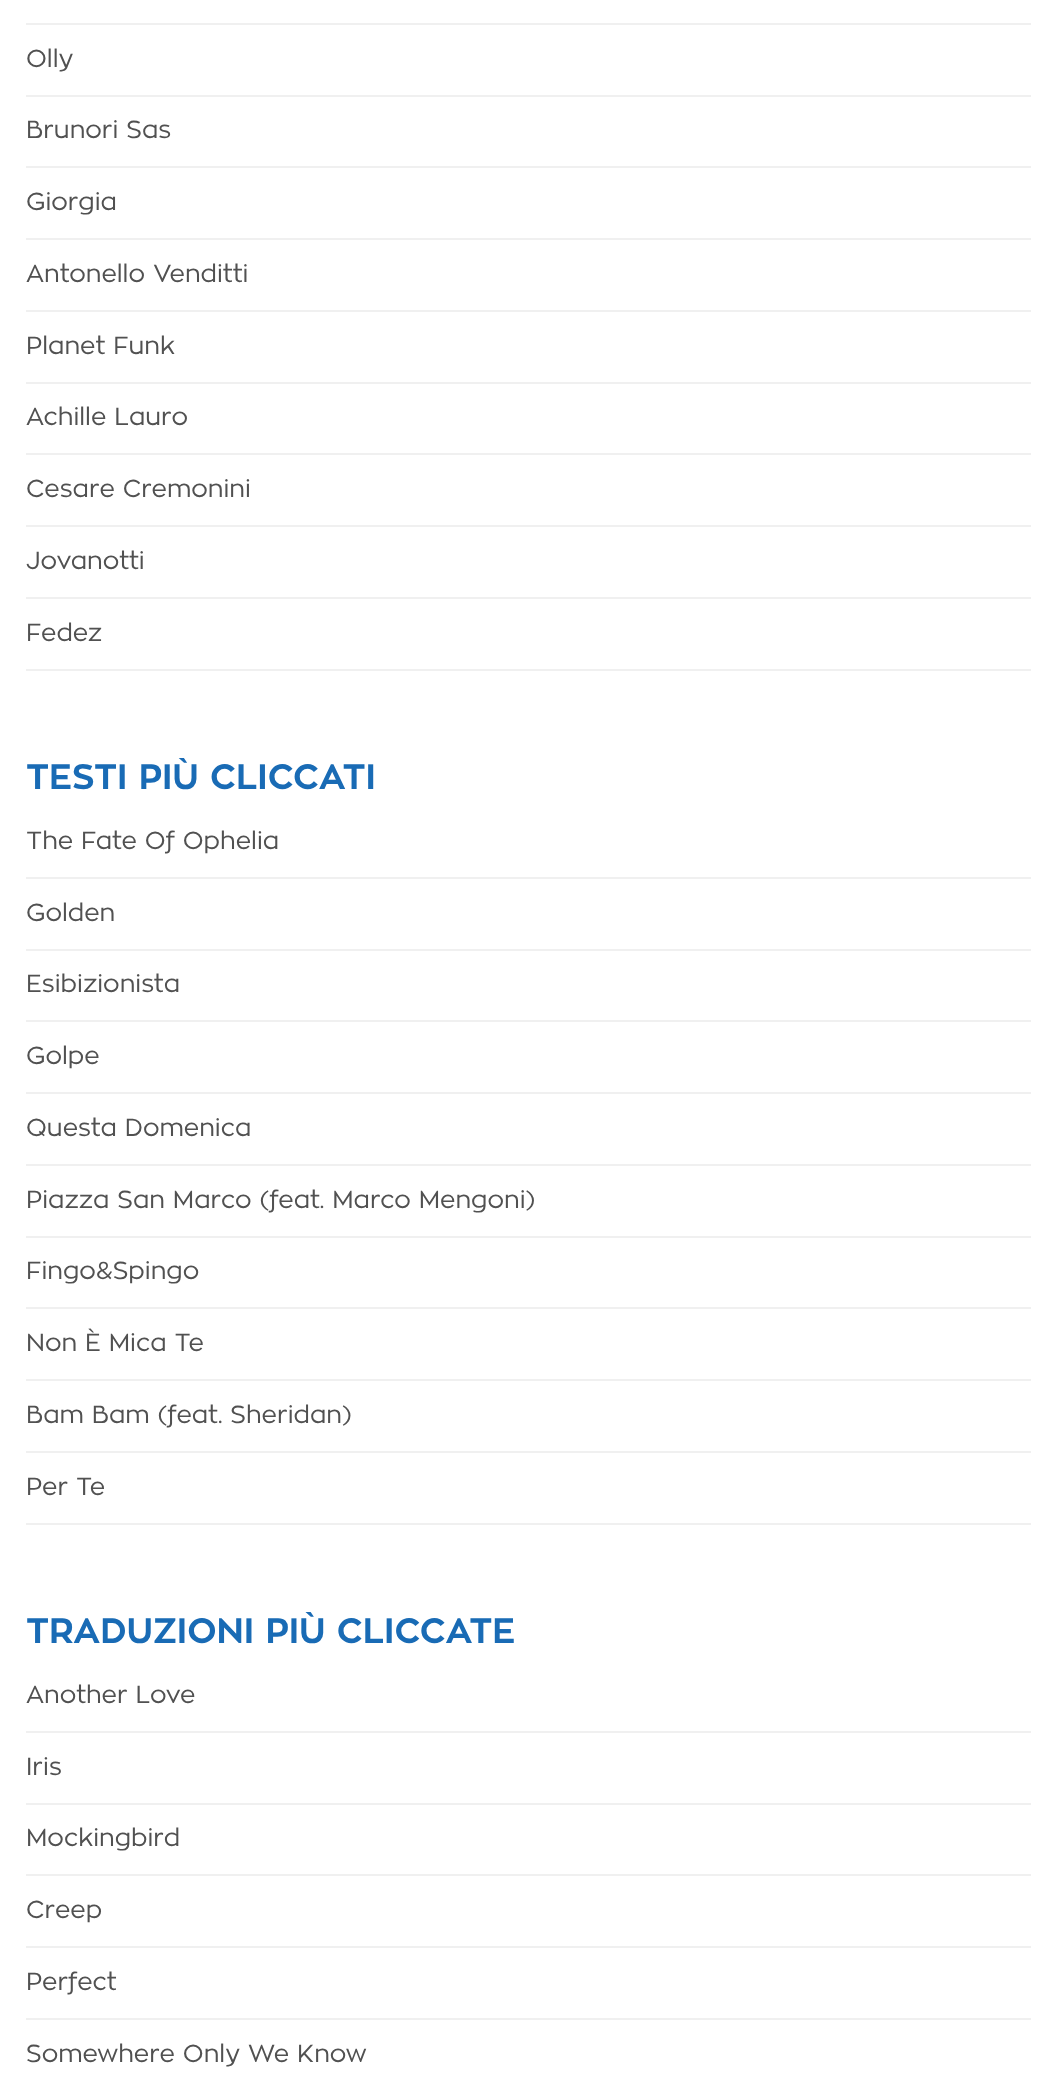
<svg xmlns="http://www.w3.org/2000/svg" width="1056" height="2088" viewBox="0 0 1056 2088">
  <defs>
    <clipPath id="clip1"><rect x="26" y="758" width="1005" height="819"/></clipPath>
    <clipPath id="clip2"><rect x="26" y="1612" width="1005" height="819"/></clipPath>
  </defs>
  <rect width="100%" height="100%" fill="rgb(255,255,255)"/>
  <rect x="26" y="23" width="1005" height="2" fill="rgb(240,240,240)"/>
  <rect x="26" y="95" width="1005" height="2" fill="rgb(240,240,240)"/>
  <text x="26" y="67" font-family="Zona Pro" font-size="24.5" fill="rgb(81,81,81)">Olly</text>
  <rect x="26" y="166" width="1005" height="2" fill="rgb(240,240,240)"/>
  <text x="26" y="138" font-family="Zona Pro" font-size="24.5" fill="rgb(81,81,81)">Brunori Sas</text>
  <rect x="26" y="238" width="1005" height="2" fill="rgb(240,240,240)"/>
  <text x="26" y="210" font-family="Zona Pro" font-size="24.5" fill="rgb(81,81,81)">Giorgia</text>
  <rect x="26" y="310" width="1005" height="2" fill="rgb(240,240,240)"/>
  <text x="26" y="282" font-family="Zona Pro" font-size="24.5" fill="rgb(81,81,81)">Antonello Venditti</text>
  <rect x="26" y="382" width="1005" height="2" fill="rgb(240,240,240)"/>
  <text x="26" y="354" font-family="Zona Pro" font-size="24.5" fill="rgb(81,81,81)">Planet Funk</text>
  <rect x="26" y="453" width="1005" height="2" fill="rgb(240,240,240)"/>
  <text x="26" y="425" font-family="Zona Pro" font-size="24.5" fill="rgb(81,81,81)">Achille Lauro</text>
  <rect x="26" y="525" width="1005" height="2" fill="rgb(240,240,240)"/>
  <text x="26" y="497" font-family="Zona Pro" font-size="24.5" fill="rgb(81,81,81)">Cesare Cremonini</text>
  <rect x="26" y="597" width="1005" height="2" fill="rgb(240,240,240)"/>
  <text x="26" y="569" font-family="Zona Pro" font-size="24.5" fill="rgb(81,81,81)">Jovanotti</text>
  <rect x="26" y="669" width="1005" height="2" fill="rgb(240,240,240)"/>
  <text x="26" y="641" font-family="Zona Pro" font-size="24.5" fill="rgb(81,81,81)">Fedez</text>
  <g clip-path="url(#clip1)">
    <text x="26" y="789" font-family="Zona Pro" font-size="35" font-weight="bold" fill="rgb(25,107,181)">TESTI PIÙ CLICCATI</text>
  </g>
  <rect x="26" y="877" width="1005" height="2" fill="rgb(240,240,240)"/>
  <text x="26" y="849" font-family="Zona Pro" font-size="24.5" fill="rgb(81,81,81)">The Fate Of Ophelia</text>
  <rect x="26" y="949" width="1005" height="2" fill="rgb(240,240,240)"/>
  <text x="26" y="921" font-family="Zona Pro" font-size="24.5" fill="rgb(81,81,81)">Golden</text>
  <rect x="26" y="1020" width="1005" height="2" fill="rgb(240,240,240)"/>
  <text x="26" y="992" font-family="Zona Pro" font-size="24.5" fill="rgb(81,81,81)">Esibizionista</text>
  <rect x="26" y="1092" width="1005" height="2" fill="rgb(240,240,240)"/>
  <text x="26" y="1064" font-family="Zona Pro" font-size="24.5" fill="rgb(81,81,81)">Golpe</text>
  <rect x="26" y="1164" width="1005" height="2" fill="rgb(240,240,240)"/>
  <text x="26" y="1136" font-family="Zona Pro" font-size="24.5" fill="rgb(81,81,81)">Questa Domenica</text>
  <rect x="26" y="1236" width="1005" height="2" fill="rgb(240,240,240)"/>
  <text x="26" y="1208" font-family="Zona Pro" font-size="24.5" fill="rgb(81,81,81)">Piazza San Marco (feat. Marco Mengoni)</text>
  <rect x="26" y="1307" width="1005" height="2" fill="rgb(240,240,240)"/>
  <text x="26" y="1279" font-family="Zona Pro" font-size="24.5" fill="rgb(81,81,81)">Fingo&amp;Spingo</text>
  <rect x="26" y="1379" width="1005" height="2" fill="rgb(240,240,240)"/>
  <text x="26" y="1351" font-family="Zona Pro" font-size="24.5" fill="rgb(81,81,81)">Non È Mica Te</text>
  <rect x="26" y="1451" width="1005" height="2" fill="rgb(240,240,240)"/>
  <text x="26" y="1423" font-family="Zona Pro" font-size="24.5" fill="rgb(81,81,81)">Bam Bam (feat. Sheridan)</text>
  <rect x="26" y="1523" width="1005" height="2" fill="rgb(240,240,240)"/>
  <text x="26" y="1495" font-family="Zona Pro" font-size="24.5" fill="rgb(81,81,81)">Per Te</text>
  <g clip-path="url(#clip2)">
    <text x="26" y="1643" font-family="Zona Pro" font-size="35" font-weight="bold" fill="rgb(25,107,181)">TRADUZIONI PIÙ CLICCATE</text>
  </g>
  <rect x="26" y="1731" width="1005" height="2" fill="rgb(240,240,240)"/>
  <text x="26" y="1703" font-family="Zona Pro" font-size="24.5" fill="rgb(81,81,81)">Another Love</text>
  <rect x="26" y="1803" width="1005" height="2" fill="rgb(240,240,240)"/>
  <text x="26" y="1775" font-family="Zona Pro" font-size="24.5" fill="rgb(81,81,81)">Iris</text>
  <rect x="26" y="1874" width="1005" height="2" fill="rgb(240,240,240)"/>
  <text x="26" y="1846" font-family="Zona Pro" font-size="24.5" fill="rgb(81,81,81)">Mockingbird</text>
  <rect x="26" y="1946" width="1005" height="2" fill="rgb(240,240,240)"/>
  <text x="26" y="1918" font-family="Zona Pro" font-size="24.5" fill="rgb(81,81,81)">Creep</text>
  <rect x="26" y="2018" width="1005" height="2" fill="rgb(240,240,240)"/>
  <g font-family="Zona Pro" font-size="24.5" fill="rgb(81,81,81)">
    <text x="26" y="1990">Perfect</text>
    <text x="26" y="2062">Somewhere Only We Know</text>
  </g>
</svg>
